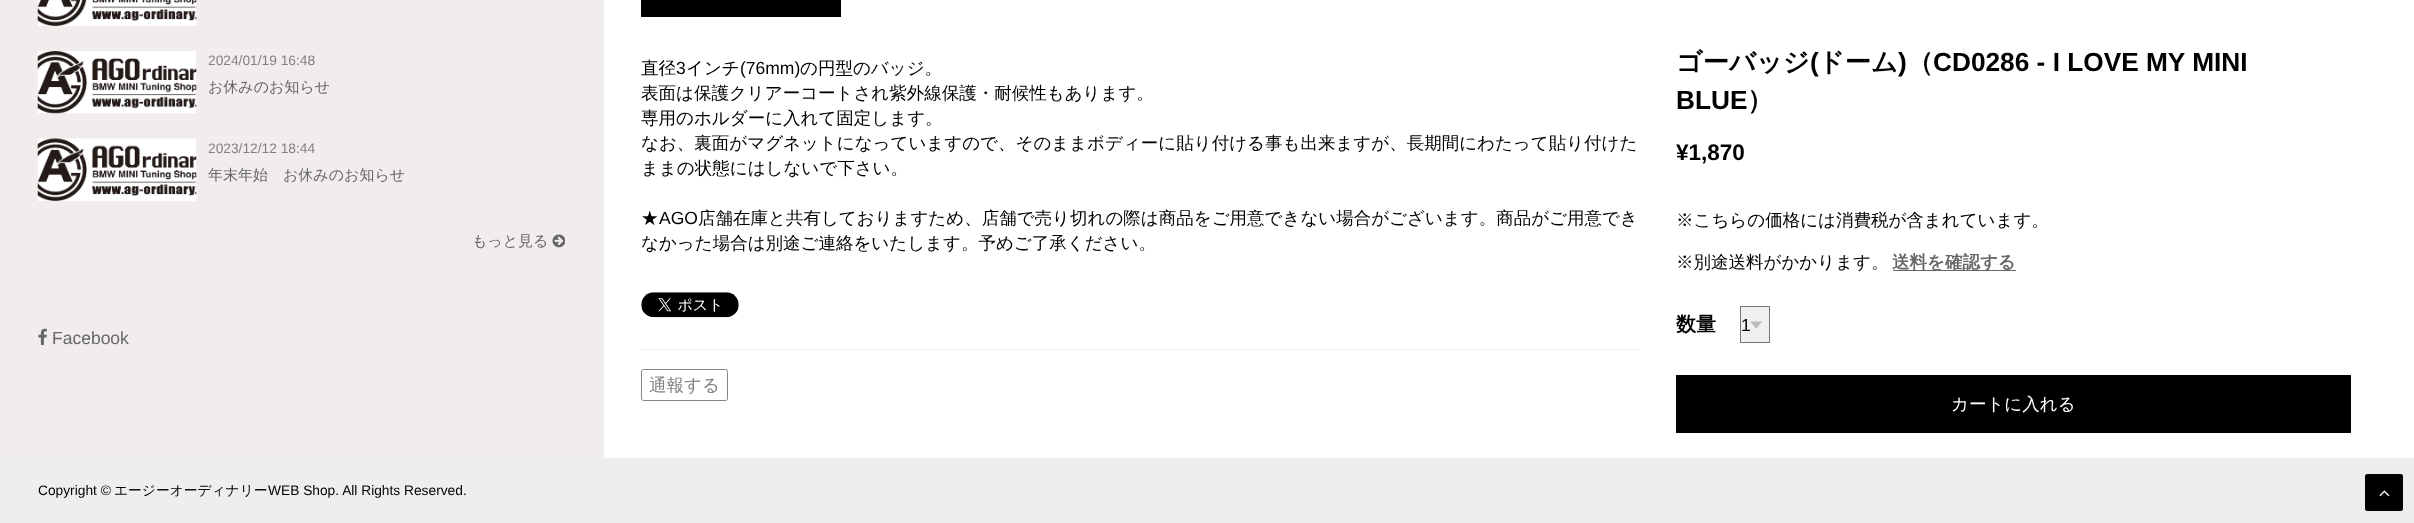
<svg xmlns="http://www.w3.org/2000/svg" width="2414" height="523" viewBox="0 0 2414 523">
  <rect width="100%" height="100%" fill="rgb(255,255,255)"/>
  <rect x="0" y="0" width="603" height="458" fill="rgb(242,237,237)"/>
  <rect x="603" y="0" width="1" height="458" fill="rgb(238,238,238)"/>
  <image x="37" y="0" width="160" height="26" href="pic1.png"/>
  <image x="37" y="51" width="160" height="63" href="pic2.png"/>
  <text x="208" y="65" font-family="Liberation Sans" font-size="13.75" fill="rgb(130,129,129)">2024/01/19 16:48</text>
  <text x="208" y="92" font-family="WenQuanYi Zen Hei" font-size="15" font-weight="500" fill="rgb(102,102,102)">お休みのお知らせ</text>
  <image x="37" y="138" width="160" height="63" href="pic3.png"/>
  <text x="208" y="153" font-family="Liberation Sans" font-size="13.75" fill="rgb(130,129,129)">2023/12/12 18:44</text>
  <g font-family="WenQuanYi Zen Hei" font-size="15" font-weight="500" fill="rgb(102,102,102)">
    <text x="208" y="180">年末年始　お休みのお知らせ</text>
    <text x="472" y="246">もっと見る</text>
  </g>
  <image x="552" y="234" width="13" height="14" href="pic4.png"/>
  <image x="38" y="328" width="9" height="17" href="pic5.png"/>
  <text x="52" y="344" font-family="Liberation Sans" font-size="17.5" fill="rgb(102,102,102)">Facebook</text>
  <rect x="641" y="0" width="200" height="17" fill="rgb(0,0,0)"/>
  <text x="641" y="74" font-family="WenQuanYi Zen Hei" font-size="17.5" font-weight="500" fill="rgb(0,0,0)">直径</text>
  <text x="676" y="74" font-family="Liberation Sans" font-size="17.5" fill="rgb(0,0,0)">3</text>
  <text x="686" y="74" font-family="WenQuanYi Zen Hei" font-size="17.5" font-weight="500" fill="rgb(0,0,0)">インチ</text>
  <text x="740" y="74" font-family="Liberation Sans" font-size="17.5" fill="rgb(0,0,0)">(76mm)</text>
  <g font-family="WenQuanYi Zen Hei" font-size="17.5" font-weight="500" fill="rgb(0,0,0)">
    <text x="800" y="74">の円型のバッジ。</text>
    <text>
      <tspan x="641" y="99">表面は保護クリアーコートされ紫外線保護・耐候性もあります。</tspan>
      <tspan x="641" y="124">専用のホルダーに入れて固定します。</tspan>
      <tspan x="641" y="149">なお、裏面がマグネットになっていますので、そのままボディーに貼り付ける事も出来ますが、長期間にわたって貼り付けた</tspan>
      <tspan x="641" y="174">ままの状態にはしないで下さい。</tspan>
    </text>
    <text x="641" y="224">★</text>
  </g>
  <text x="659" y="224" font-family="Liberation Sans" font-size="17.5" fill="rgb(0,0,0)">AGO</text>
  <g font-family="WenQuanYi Zen Hei" font-size="17.5" font-weight="500" fill="rgb(0,0,0)">
    <text x="698" y="224">店舗在庫と共有しておりますため、店舗で売り切れの際は商品をご用意できない場合がございます。商品がご用意でき</text>
    <text x="641" y="249">なかった場合は別途ご連絡をいたします。予めご了承ください。</text>
  </g>
  <image x="641" y="292" width="98" height="26" href="pic6.png"/>
  <rect x="641" y="349" width="998" height="1" fill="rgb(238,238,238)"/>
  <rect x="641.5" y="369.5" width="86" height="31" rx="2" fill="none" stroke="rgb(133,133,133)"/>
  <text x="649" y="391" font-family="WenQuanYi Zen Hei" font-size="17.5" font-weight="500" fill="rgb(130,129,129)">通報する</text>
  <text x="1676" y="71" font-family="WenQuanYi Zen Hei" font-size="26.25" font-weight="bold" fill="rgb(0,0,0)">ゴーバッジ</text>
  <text x="1810" y="71" font-family="Liberation Sans" font-size="26.25" font-weight="bold" fill="rgb(0,0,0)">(</text>
  <text x="1818" y="71" font-family="WenQuanYi Zen Hei" font-size="26.25" font-weight="bold" fill="rgb(0,0,0)">ドーム</text>
  <text x="1898" y="71" font-family="Liberation Sans" font-size="26.25" font-weight="bold" fill="rgb(0,0,0)">)</text>
  <text x="1907" y="71" font-family="WenQuanYi Zen Hei" font-size="26.25" font-weight="bold" fill="rgb(0,0,0)">（</text>
  <g font-family="Liberation Sans" font-size="26.25" font-weight="bold" fill="rgb(0,0,0)">
    <text x="1933" y="71">CD0286 - I LOVE MY MINI</text>
    <text x="1676" y="109">BLUE</text>
  </g>
  <text x="1747" y="109" font-family="WenQuanYi Zen Hei" font-size="26.25" font-weight="bold" fill="rgb(0,0,0)">）</text>
  <text x="1676" y="160" font-family="Liberation Sans" font-size="22.5" font-weight="bold" fill="rgb(0,0,0)">¥1,870</text>
  <g font-family="WenQuanYi Zen Hei" font-size="17.5" font-weight="500" fill="rgb(0,0,0)">
    <text x="1676" y="226">※こちらの価格には消費税が含まれています。</text>
    <text x="1676" y="268">※別途送料がかかります。</text>
  </g>
  <rect x="1893" y="270" width="123" height="1" fill="rgb(102,102,102)"/>
  <text x="1892" y="268" font-family="WenQuanYi Zen Hei" font-size="17.5" font-weight="bold" fill="rgb(102,102,102)">送料を確認する</text>
  <text x="1676" y="331" font-family="WenQuanYi Zen Hei" font-size="20" font-weight="bold" fill="rgb(0,0,0)">数量</text>
  <rect x="1741" y="307" width="28" height="35" fill="rgb(239,239,239)"/>
  <image x="1750" y="321" width="12" height="8" href="pic7.png"/>
  <rect x="1740.5" y="306.5" width="29" height="36" fill="none" stroke="rgb(118,118,118)"/>
  <text x="1741" y="331" font-family="Liberation Sans" font-size="17.5" fill="rgb(0,0,0)">1</text>
  <rect x="1676" y="375" width="675" height="58" fill="rgb(0,0,0)"/>
  <text x="1951" y="410" font-family="WenQuanYi Zen Hei" font-size="17.5" font-weight="500" fill="rgb(255,255,255)">カートに入れる</text>
  <rect x="0" y="458" width="2414" height="65" fill="rgb(238,238,238)"/>
  <text x="38" y="495" font-family="Liberation Sans" font-size="13.75" fill="rgb(0,0,0)">Copyright ©</text>
  <text x="114" y="495" font-family="WenQuanYi Zen Hei" font-size="13.75" font-weight="500" fill="rgb(0,0,0)">エージーオーディナリー</text>
  <text x="268" y="495" font-family="Liberation Sans" font-size="13.75" fill="rgb(0,0,0)">WEB Shop. All Rights Reserved.</text>
  <rect x="2365" y="474" width="38" height="37" rx="2.5" fill="rgb(0,0,0)"/>
  <image x="2379" y="490" width="11" height="7" href="pic8.png"/>
</svg>
